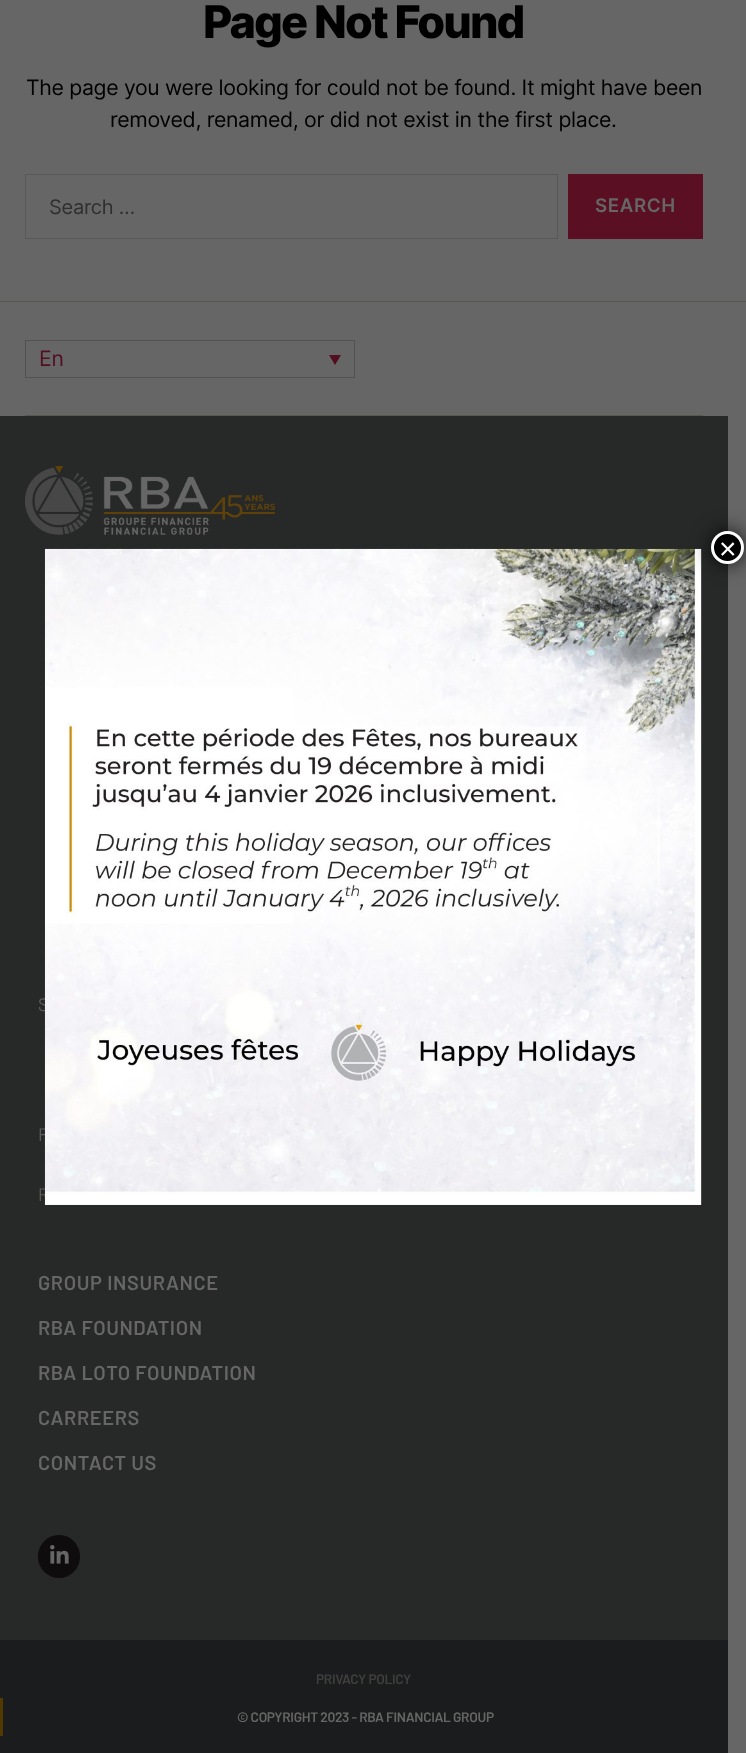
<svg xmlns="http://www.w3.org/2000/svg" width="746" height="1753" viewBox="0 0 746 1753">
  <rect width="100%" height="100%" fill="rgb(102,102,102)"/>
  <text x="203" y="38" font-family="Inter" font-size="45" font-weight="800" letter-spacing="-1.9" fill="rgb(0,0,0)">Page Not Found</text>
  <g font-family="Inter" font-size="21.25" letter-spacing="-0.32" fill="rgb(0,0,0)">
    <text x="26" y="95">The page you were looking for could not be found. It might have been</text>
    <text x="110" y="127">removed, renamed, or did not exist in the first place.</text>
  </g>
  <rect x="25.5" y="174.5" width="532" height="64" fill="none" stroke="rgb(88,88,88)"/>
  <text x="49" y="214" font-family="Inter" font-size="20" letter-spacing="-0.25" fill="rgb(47,47,47)">Search …</text>
  <rect x="568" y="174" width="135" height="65" fill="rgb(90,15,35)"/>
  <text x="595" y="212" font-family="Inter" font-size="18.75" font-weight="600" letter-spacing="0.6" fill="rgb(102,102,102)">SEARCH</text>
  <rect x="0" y="301" width="746" height="1" fill="rgb(88,86,81)"/>
  <rect x="25" y="415" width="678" height="1" fill="rgb(88,86,81)"/>
  <rect x="25.5" y="340.5" width="329" height="37" fill="none" stroke="rgb(82,82,82)"/>
  <text x="39" y="366" font-family="Inter" font-size="21.25" letter-spacing="-0.32" fill="rgb(82,15,33)">En</text>
  <path d="M329 355H341L335 365Z" fill="rgb(82,15,33)"/>
  <rect x="0" y="416" width="728" height="1224" fill="rgb(39,40,40)"/>
  <g font-family="Barlow" font-size="18" letter-spacing="-0.32" fill="rgb(93,93,91)">
    <text x="38" y="1011">S</text>
    <text x="38" y="1141">F</text>
    <text x="38" y="1201">R</text>
  </g>
  <image x="44" y="548" width="658" height="657" href="pic1.png"/>
  <rect x="710" y="530" width="35" height="35" rx="17.5" fill="rgba(2,2,2,0.75)" filter="blur(9.5px)"/>
  <circle cx="727.5" cy="547.5" r="15" fill="rgb(0,0,0)" stroke="rgb(255,255,255)" stroke-width="3"/>
  <text x="719" y="559" font-family="Liberation Sans" font-size="30" fill="rgb(255,255,255)">×</text>
  <image x="25" y="466" width="250" height="69" href="pic2.png"/>
  <g font-family="Barlow" font-size="20" font-weight="600" letter-spacing="0.6" fill="rgb(102,102,102)">
    <text x="38" y="1290">GROUP INSURANCE</text>
    <text x="38" y="1335">RBA FOUNDATION</text>
    <text x="38" y="1380">RBA LOTO FOUNDATION</text>
    <text x="38" y="1425">CARREERS</text>
    <text x="38" y="1470">CONTACT US</text>
  </g>
  <rect x="38" y="1535" width="42" height="43" rx="21" fill="rgb(14,12,13)"/>
  <image x="50" y="1545" width="19" height="19" href="pic3.png"/>
  <rect x="0" y="1640" width="728" height="113" fill="rgb(27,28,29)"/>
  <text x="316" y="1684" font-family="Barlow" font-size="13.75" font-weight="600" letter-spacing="-0.32" fill="rgb(63,63,62)">PRIVACY POLICY</text>
  <rect x="0" y="1698" width="3" height="38" fill="rgb(82,57,0)"/>
  <text x="237" y="1722" font-family="Barlow" font-size="13.75" font-weight="600" letter-spacing="-0.32" fill="rgb(102,102,102)">© COPYRIGHT 2023 - RBA FINANCIAL GROUP</text>
</svg>
